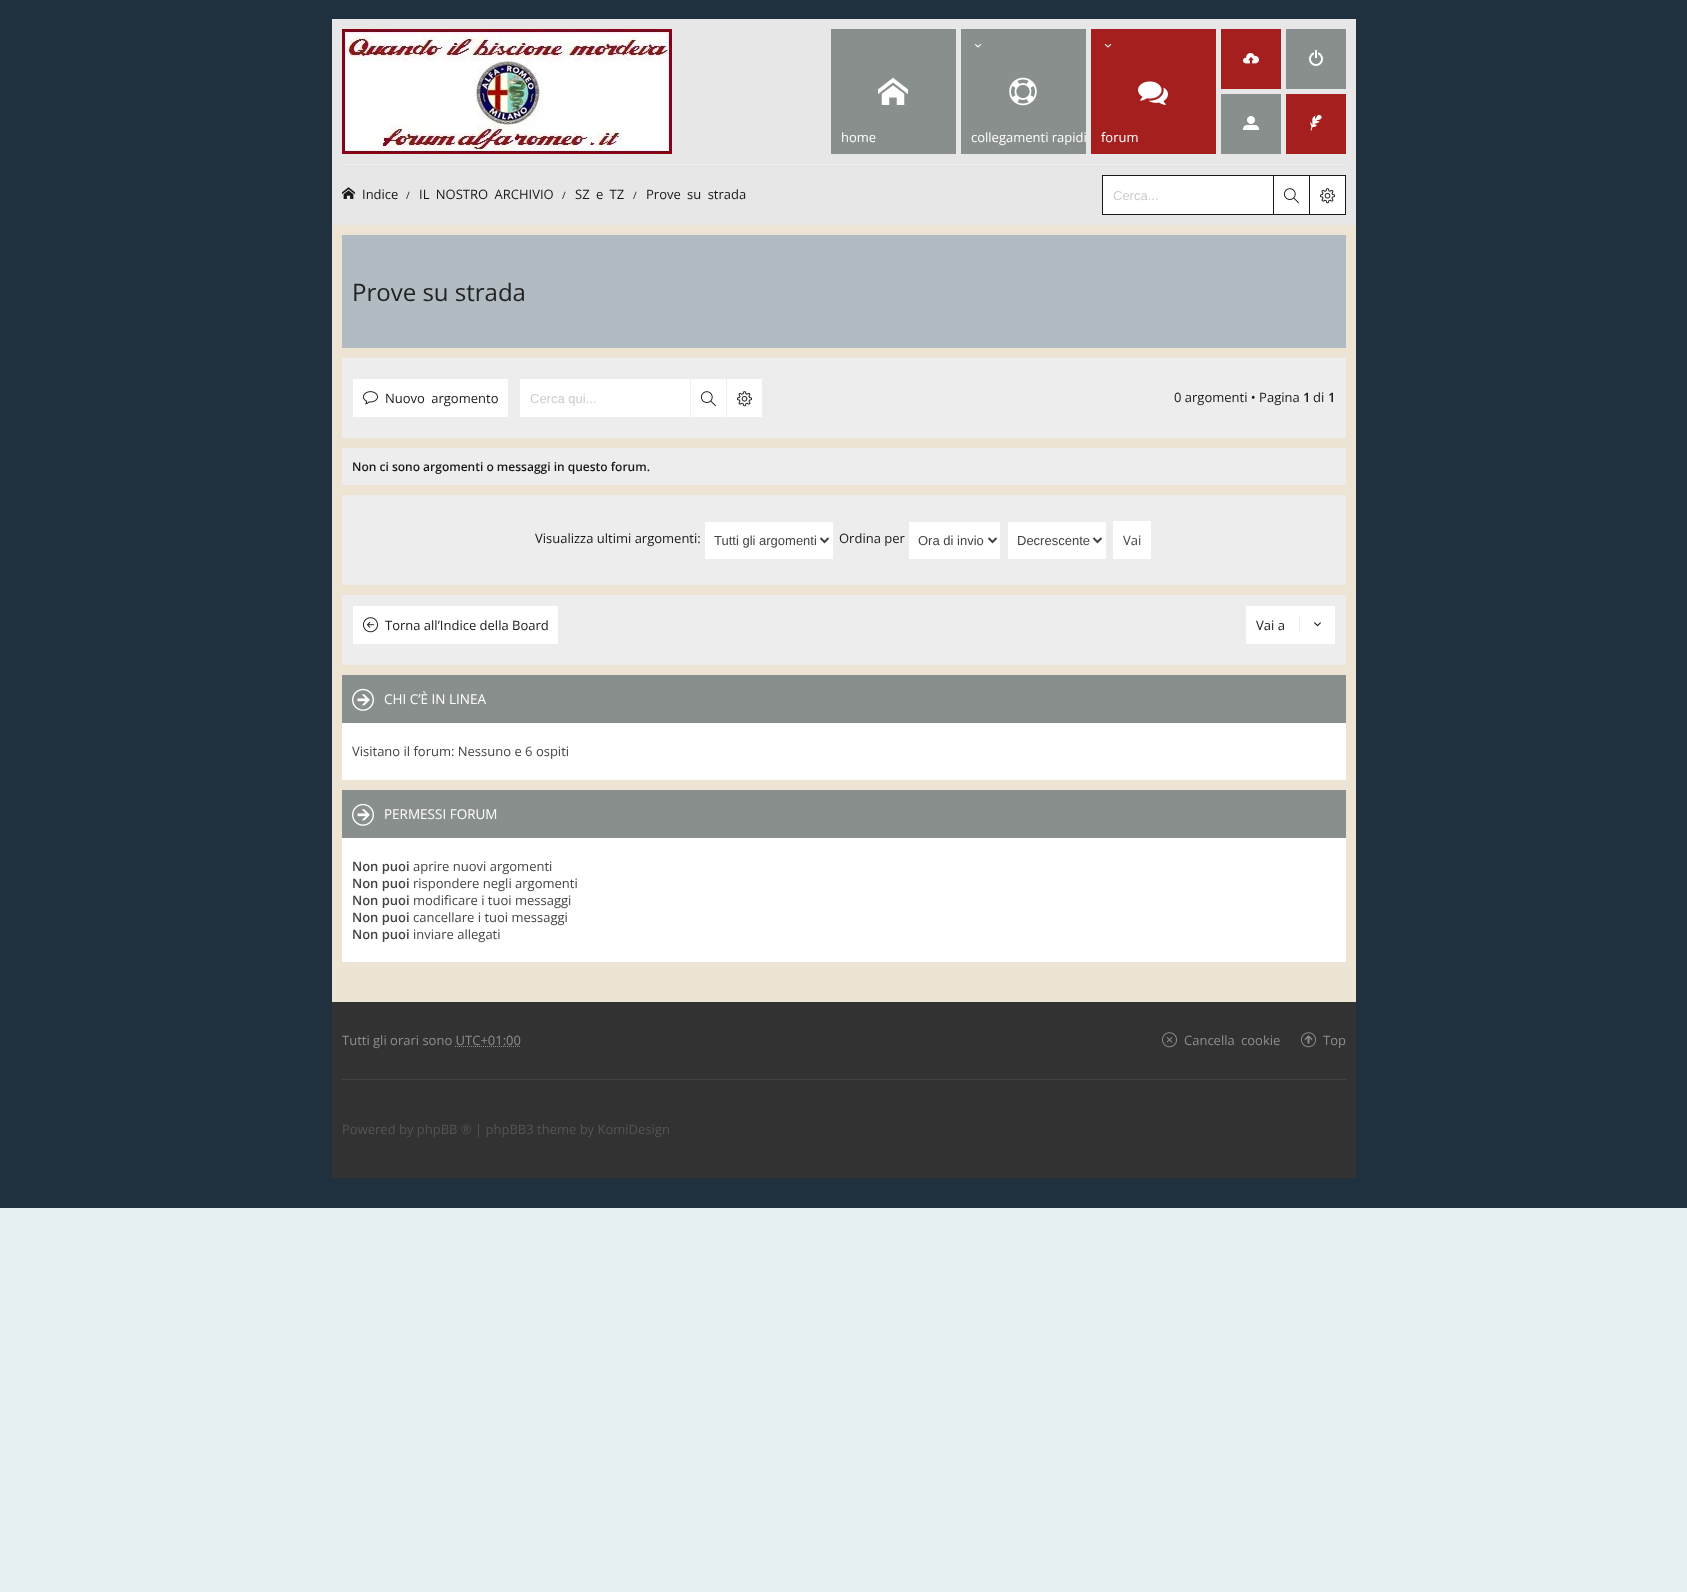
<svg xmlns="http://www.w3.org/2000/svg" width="1687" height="1592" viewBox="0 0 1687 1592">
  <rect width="100%" height="100%" fill="rgb(230,239,242)"/>
  <rect x="0" y="0" width="1687" height="1208" fill="rgb(31,49,63)"/>
  <rect x="332" y="225" width="1024" height="777" fill="rgb(237,228,211)"/>
  <rect x="332" y="19" width="1024" height="206" fill="rgb(231,231,231)"/>
  <image x="342" y="29" width="330" height="125" href="pic1.png"/>
  <rect x="831" y="29" width="125" height="125" fill="rgb(137,143,141)"/>
  <image x="878" y="77" width="30" height="28" href="pic2.png"/>
  <text x="841" y="142" font-family="Open Sans" font-size="13" fill="rgb(255,255,255)">home</text>
  <rect x="961" y="29" width="125" height="125" fill="rgb(137,143,141)"/>
  <image x="974" y="43" width="8" height="5" href="pic3.png"/>
  <image x="1009" y="77" width="28" height="29" href="pic4.png"/>
  <text x="971" y="142" font-family="Open Sans" font-size="13" fill="rgb(255,255,255)">collegamenti rapidi</text>
  <rect x="1091" y="29" width="125" height="125" fill="rgb(165,31,31)"/>
  <image x="1104" y="43" width="8" height="5" href="pic5.png"/>
  <image x="1138" y="81" width="30" height="24" href="pic6.png"/>
  <text x="1101" y="142" font-family="Open Sans" font-size="13" fill="rgb(255,255,255)">forum</text>
  <rect x="1221" y="29" width="60" height="60" fill="rgb(165,31,31)"/>
  <image x="1243" y="53" width="16" height="11" href="pic7.png"/>
  <rect x="1286" y="29" width="60" height="60" fill="rgb(137,143,141)"/>
  <image x="1309" y="50" width="14" height="16" href="pic8.png"/>
  <rect x="1221" y="94" width="60" height="60" fill="rgb(137,143,141)"/>
  <image x="1243" y="116" width="16" height="14" href="pic9.png"/>
  <rect x="1286" y="94" width="60" height="60" fill="rgb(165,31,31)"/>
  <image x="1310" y="114" width="12" height="17" href="pic10.png"/>
  <rect x="342" y="164" width="1004" height="1" fill="rgb(238,238,238)"/>
  <image x="342" y="187" width="13" height="12" href="pic11.png"/>
  <text x="362" y="199" font-family="Open Sans" font-size="13" fill="rgb(24,24,24)">Indice</text>
  <text x="406" y="199" font-family="Open Sans" font-size="10" fill="rgb(24,24,24)">/</text>
  <text x="419" y="199" word-spacing="3" font-family="Open Sans" font-size="13" fill="rgb(24,24,24)">IL NOSTRO ARCHIVIO</text>
  <text x="562" y="199" font-family="Open Sans" font-size="10" fill="rgb(24,24,24)">/</text>
  <text x="575" y="199" word-spacing="3" font-family="Open Sans" font-size="13" fill="rgb(24,24,24)">SZ e TZ</text>
  <text x="633" y="199" font-family="Open Sans" font-size="10" fill="rgb(24,24,24)">/</text>
  <text x="646" y="199" word-spacing="3" font-family="Open Sans" font-size="13" fill="rgb(24,24,24)">Prove su strada</text>
  <rect x="1102.5" y="175.5" width="243" height="39" fill="rgb(255,255,255)" stroke="rgb(24,24,24)"/>
  <text x="1113" y="200" font-family="Liberation Sans" font-size="13" fill="rgb(204,204,204)">Cerca...</text>
  <rect x="1273" y="176" width="1" height="38" fill="rgb(24,24,24)"/>
  <image x="1283" y="188" width="16" height="16" href="pic12.png"/>
  <rect x="1309" y="176" width="1" height="38" fill="rgb(24,24,24)"/>
  <image x="1320" y="188" width="15" height="16" href="pic13.png"/>
  <rect x="342" y="235" width="1004" height="113" fill="rgb(176,188,193)"/>
  <text x="352" y="301" font-family="Open Sans" font-size="24" fill="rgb(34,34,34)">Prove su strada</text>
  <rect x="342" y="358" width="1004" height="80" fill="rgb(237,237,237)"/>
  <rect x="353" y="379" width="155" height="38" fill="rgb(255,255,255)"/>
  <image x="363" y="391" width="15" height="14" href="pic14.png"/>
  <text x="385" y="403" word-spacing="3" font-family="Open Sans" font-size="13" fill="rgb(24,24,24)">Nuovo argomento</text>
  <rect x="520" y="379" width="242" height="38" fill="rgb(255,255,255)"/>
  <text x="530" y="403" font-family="Liberation Sans" font-size="13" fill="rgb(204,204,204)">Cerca qui...</text>
  <rect x="690" y="379" width="1" height="38" fill="rgb(238,238,238)"/>
  <image x="700" y="391" width="16" height="16" href="pic12.png"/>
  <rect x="726" y="379" width="1" height="38" fill="rgb(238,238,238)"/>
  <image x="737" y="391" width="15" height="16" href="pic13.png"/>
  <text x="1174" y="402" font-family="Open Sans" font-size="13" fill="rgb(24,24,24)">0 argomenti • Pagina</text>
  <text x="1303" y="402" font-family="Open Sans" font-size="13" font-weight="600" fill="rgb(24,24,24)">1</text>
  <text x="1313" y="402" font-family="Open Sans" font-size="13" fill="rgb(24,24,24)">di</text>
  <text x="1328" y="402" font-family="Open Sans" font-size="13" font-weight="600" fill="rgb(24,24,24)">1</text>
  <rect x="342" y="448" width="1004" height="37" fill="rgb(237,237,237)"/>
  <text x="352" y="471" font-family="Open Sans" font-size="12" font-weight="600" fill="rgb(24,24,24)">Non ci sono argomenti o messaggi in questo forum.</text>
  <rect x="342" y="495" width="1004" height="90" fill="rgb(237,237,237)"/>
  <text x="535" y="543" font-family="Open Sans" font-size="13" fill="rgb(24,24,24)">Visualizza ultimi argomenti:</text>
  <rect x="705" y="522" width="128" height="37" fill="rgb(255,255,255)"/>
  <path d="M820.5 538L824.5 542L828.5 538" fill="none" stroke="rgb(68,68,68)" stroke-width="2"/>
  <text x="714" y="545" font-family="Liberation Sans" font-size="13" fill="rgb(68,68,68)">Tutti gli argomenti</text>
  <text x="839" y="543" font-family="Open Sans" font-size="13" fill="rgb(24,24,24)">Ordina per</text>
  <rect x="909" y="522" width="91" height="37" fill="rgb(255,255,255)"/>
  <path d="M988.5 538L992.5 542L996.5 538" fill="none" stroke="rgb(68,68,68)" stroke-width="2"/>
  <text x="918" y="545" font-family="Liberation Sans" font-size="13" fill="rgb(68,68,68)">Ora di invio</text>
  <rect x="1008" y="522" width="98" height="37" fill="rgb(255,255,255)"/>
  <path d="M1093.5 538L1097.5 542L1101.5 538" fill="none" stroke="rgb(68,68,68)" stroke-width="2"/>
  <text x="1017" y="545" font-family="Liberation Sans" font-size="13" fill="rgb(68,68,68)">Decrescente</text>
  <rect x="1113" y="521" width="38" height="38" fill="rgb(255,255,255)"/>
  <text x="1123" y="545" font-family="Open Sans" font-size="13" fill="rgb(68,68,68)">Vai</text>
  <rect x="342" y="595" width="1004" height="70" fill="rgb(237,237,237)"/>
  <rect x="353" y="606" width="205" height="38" fill="rgb(255,255,255)"/>
  <image x="363" y="617" width="15" height="16" href="pic15.png"/>
  <text x="385" y="630" font-family="Open Sans" font-size="13" fill="rgb(24,24,24)">Torna all’Indice della Board</text>
  <rect x="1246" y="606" width="89" height="38" fill="rgb(255,255,255)"/>
  <text x="1256" y="630" font-family="Open Sans" font-size="13" fill="rgb(24,24,24)">Vai a</text>
  <rect x="1299" y="617" width="1" height="15" fill="rgb(238,238,238)"/>
  <image x="1314" y="622" width="7" height="5" href="pic16.png"/>
  <rect x="342" y="723" width="1004" height="57" fill="rgb(255,255,255)"/>
  <rect x="342" y="675" width="1004" height="48" fill="rgb(137,143,141)"/>
  <image x="352" y="688" width="22" height="23" href="pic17.png"/>
  <text x="384" y="704" font-family="Open Sans" font-size="13.5" fill="rgb(255,255,255)">CHI C’È IN LINEA</text>
  <text x="352" y="756" font-family="Open Sans" font-size="13" fill="rgb(68,68,68)">Visitano il forum: Nessuno e 6 ospiti</text>
  <rect x="342" y="838" width="1004" height="124" fill="rgb(255,255,255)"/>
  <rect x="342" y="790" width="1004" height="48" fill="rgb(137,143,141)"/>
  <image x="352" y="803" width="22" height="23" href="pic17.png"/>
  <text x="384" y="819" font-family="Open Sans" font-size="13.5" fill="rgb(255,255,255)">PERMESSI FORUM</text>
  <text x="352" y="871" font-family="Open Sans" font-size="13" font-weight="600" fill="rgb(68,68,68)">Non puoi</text>
  <text x="413" y="871" font-family="Open Sans" font-size="13" fill="rgb(68,68,68)">aprire nuovi argomenti</text>
  <text x="352" y="888" font-family="Open Sans" font-size="13" font-weight="600" fill="rgb(68,68,68)">Non puoi</text>
  <text x="413" y="888" font-family="Open Sans" font-size="13" fill="rgb(68,68,68)">rispondere negli argomenti</text>
  <text x="352" y="905" font-family="Open Sans" font-size="13" font-weight="600" fill="rgb(68,68,68)">Non puoi</text>
  <text x="413" y="905" font-family="Open Sans" font-size="13" fill="rgb(68,68,68)">modificare i tuoi messaggi</text>
  <text x="352" y="922" font-family="Open Sans" font-size="13" font-weight="600" fill="rgb(68,68,68)">Non puoi</text>
  <text x="413" y="922" font-family="Open Sans" font-size="13" fill="rgb(68,68,68)">cancellare i tuoi messaggi</text>
  <text x="352" y="939" font-family="Open Sans" font-size="13" font-weight="600" fill="rgb(68,68,68)">Non puoi</text>
  <text x="413" y="939" font-family="Open Sans" font-size="13" fill="rgb(68,68,68)">inviare allegati</text>
  <rect x="332" y="1002" width="1024" height="176" fill="rgb(50,50,50)"/>
  <rect x="342" y="1079" width="1004" height="1" fill="rgb(66,66,66)"/>
  <text x="342" y="1045" font-family="Open Sans" font-size="13" fill="rgb(142,142,142)">Tutti gli orari sono UTC+01:00</text>
  <path d="M455 1046.5H520.5" fill="none" stroke="rgb(142,142,142)" stroke-dasharray="1 1"/>
  <image x="1162" y="1032" width="15" height="16" href="pic18.png"/>
  <text x="1184" y="1045" word-spacing="3" font-family="Open Sans" font-size="13" fill="rgb(142,142,142)">Cancella cookie</text>
  <image x="1301" y="1032" width="15" height="16" href="pic19.png"/>
  <text x="1323" y="1045" font-family="Open Sans" font-size="13" fill="rgb(142,142,142)">Top</text>
  <text x="342" y="1134" font-family="Open Sans" font-size="13" fill="rgb(85,85,85)">Powered by phpBB ® | phpBB3 theme by KomiDesign</text>
</svg>
